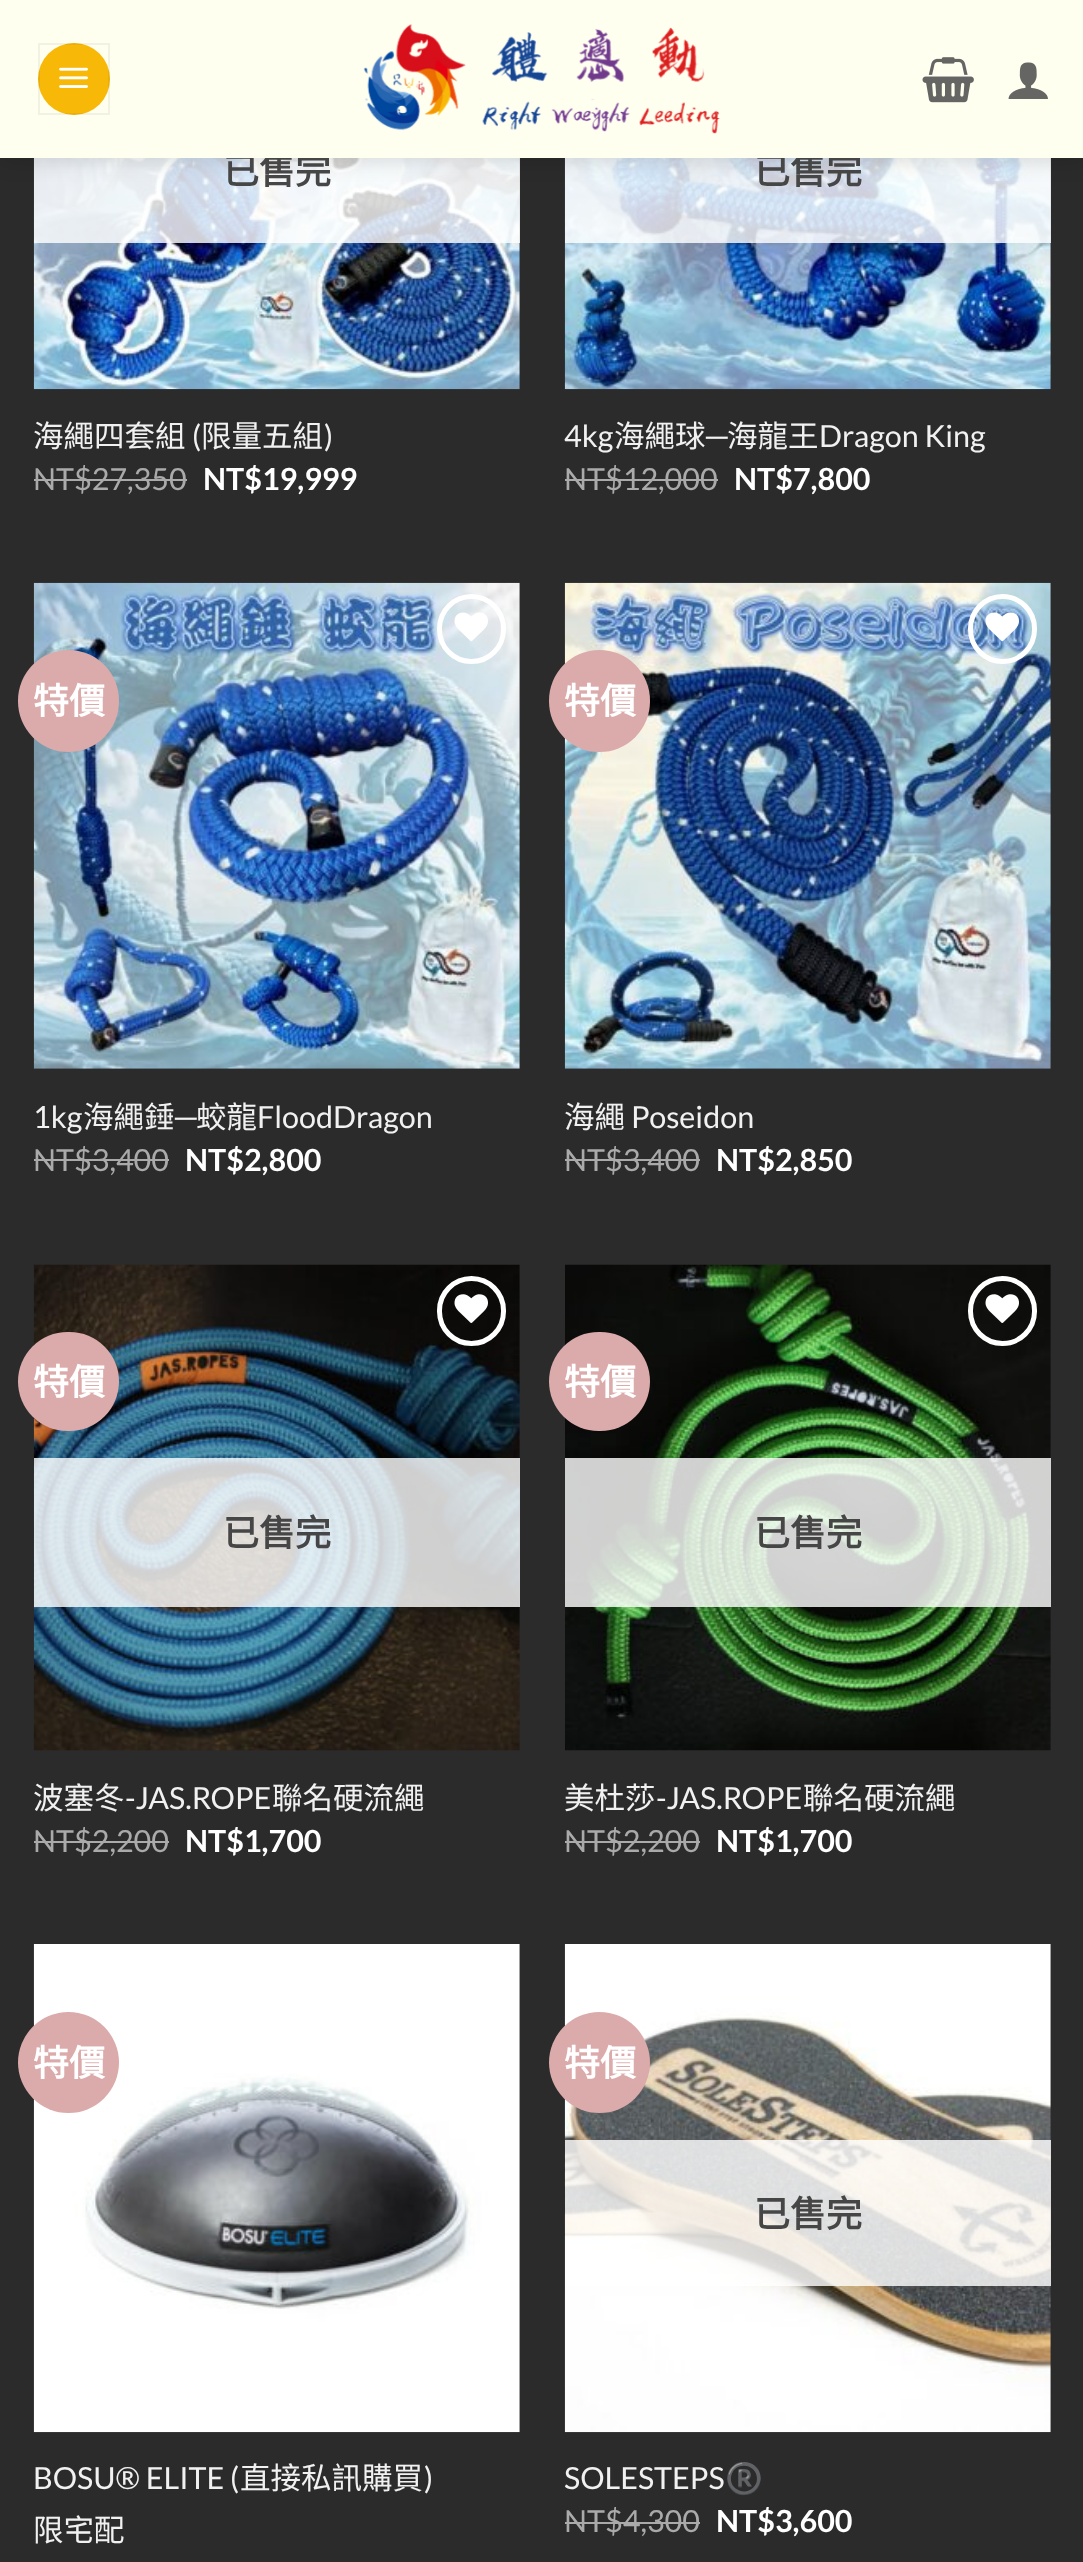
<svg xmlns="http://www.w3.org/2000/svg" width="1083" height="2562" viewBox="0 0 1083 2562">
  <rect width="100%" height="100%" fill="rgb(43,43,43)"/>
  <image x="33" y="158" width="487" height="232" href="pic5.png"/>
  <rect x="34" y="158" width="486" height="85" fill="rgba(255,255,255,0.81)"/>
  <image x="564" y="158" width="487" height="232" href="pic6.png"/>
  <rect x="565" y="158" width="486" height="85" fill="rgba(255,255,255,0.81)"/>
  <rect x="2" y="2" width="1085" height="158" fill="rgba(0,0,0,0.15)" filter="blur(11px)"/>
  <g font-family="Noto Sans CJK TC" font-size="36" font-weight="bold" fill="rgb(70,70,71)">
    <text x="223" y="184">已售完</text>
    <text x="754" y="184">已售完</text>
  </g>
  <rect x="0" y="0" width="1083" height="158" fill="rgb(255,255,240)"/>
  <circle cx="74" cy="79" r="36" fill="rgb(248,184,8)"/>
  <rect x="39" y="44" width="70" height="70" fill="none" stroke="rgba(0,0,0,0.05)" stroke-width="2"/>
  <image x="59" y="67" width="29" height="21" href="pic1.png"/>
  <image x="363" y="24" width="357" height="110" href="pic2.png"/>
  <image x="922" y="57" width="52" height="46" href="pic3.png"/>
  <image x="1008" y="62" width="40" height="37" href="pic4.png"/>
  <text x="33" y="447" font-family="Noto Sans CJK TC" font-size="30.5" fill="rgb(241,241,241)">海繩四套組</text>
  <text x="192" y="447" font-family="Lato" font-size="30.5" fill="rgb(241,241,241)">(</text>
  <text x="201" y="447" font-family="Noto Sans CJK TC" font-size="30.5" fill="rgb(241,241,241)">限量五組</text>
  <text x="324" y="447" font-family="Lato" font-size="30.5" fill="rgb(241,241,241)">)</text>
  <text x="33" y="490" font-family="Lato" font-size="30.5" fill="rgb(170,170,170)">NT$27,350</text>
  <rect x="34" y="479" width="153" height="2" fill="rgb(170,170,170)"/>
  <text x="203" y="490" font-family="Lato" font-size="30.5" font-weight="bold" fill="rgb(255,255,255)">NT$19,999</text>
  <text x="564" y="447" font-family="Lato" font-size="30.5" fill="rgb(241,241,241)">4kg</text>
  <text x="614" y="447" font-family="Noto Sans CJK TC" font-size="30.5" fill="rgb(241,241,241)">海繩球</text>
  <text x="706" y="447" font-family="Liberation Sans" font-size="30.5" fill="rgb(241,241,241)">─</text>
  <text x="727" y="447" font-family="Noto Sans CJK TC" font-size="30.5" fill="rgb(241,241,241)">海龍王</text>
  <text x="819" y="447" font-family="Lato" font-size="30.5" fill="rgb(241,241,241)">Dragon King</text>
  <text x="564" y="490" font-family="Lato" font-size="30.5" fill="rgb(170,170,170)">NT$12,000</text>
  <rect x="565" y="479" width="153" height="2" fill="rgb(170,170,170)"/>
  <text x="734" y="490" font-family="Lato" font-size="30.5" font-weight="bold" fill="rgb(255,255,255)">NT$7,800</text>
  <image x="33" y="582" width="487" height="487" href="pic7.png"/>
  <rect x="18" y="650" width="101" height="102" rx="50.5" fill="rgb(219,170,170)"/>
  <text x="33" y="714" font-family="Noto Sans CJK TC" font-size="36" font-weight="bold" fill="rgb(255,255,255)">特價</text>
  <rect x="439.5" y="596.5" width="64" height="65" rx="32" fill="none" stroke="rgb(255,255,255)" stroke-width="5"/>
  <image x="454" y="612" width="34" height="30" href="pic8.png"/>
  <text x="33" y="1128" font-family="Lato" font-size="30.5" fill="rgb(241,241,241)">1kg</text>
  <text x="83" y="1128" font-family="Noto Sans CJK TC" font-size="30.5" fill="rgb(241,241,241)">海繩錘</text>
  <text x="175" y="1128" font-family="Liberation Sans" font-size="30.5" fill="rgb(241,241,241)">─</text>
  <text x="196" y="1128" font-family="Noto Sans CJK TC" font-size="30.5" fill="rgb(241,241,241)">蛟龍</text>
  <text x="257" y="1128" font-family="Lato" font-size="30.5" fill="rgb(241,241,241)">FloodDragon</text>
  <text x="33" y="1171" font-family="Lato" font-size="30.5" fill="rgb(170,170,170)">NT$3,400</text>
  <rect x="34" y="1159" width="135" height="2" fill="rgb(170,170,170)"/>
  <text x="185" y="1171" font-family="Lato" font-size="30.5" font-weight="bold" fill="rgb(255,255,255)">NT$2,800</text>
  <image x="564" y="582" width="487" height="487" href="pic9.png"/>
  <rect x="549" y="650" width="101" height="102" rx="50.5" fill="rgb(219,170,170)"/>
  <text x="564" y="714" font-family="Noto Sans CJK TC" font-size="36" font-weight="bold" fill="rgb(255,255,255)">特價</text>
  <rect x="970.5" y="596.5" width="64" height="65" rx="32" fill="none" stroke="rgb(255,255,255)" stroke-width="5"/>
  <image x="985" y="612" width="34" height="30" href="pic10.png"/>
  <text x="564" y="1128" font-family="Noto Sans CJK TC" font-size="30.5" fill="rgb(241,241,241)">海繩</text>
  <text x="631" y="1128" font-family="Lato" font-size="30.5" fill="rgb(241,241,241)">Poseidon</text>
  <text x="564" y="1171" font-family="Lato" font-size="30.5" fill="rgb(170,170,170)">NT$3,400</text>
  <rect x="565" y="1159" width="135" height="2" fill="rgb(170,170,170)"/>
  <text x="716" y="1171" font-family="Lato" font-size="30.5" font-weight="bold" fill="rgb(255,255,255)">NT$2,850</text>
  <image x="33" y="1264" width="487" height="487" href="pic11.png"/>
  <rect x="18" y="1332" width="101" height="99" rx="49.5" fill="rgb(219,170,170)"/>
  <text x="33" y="1395" font-family="Noto Sans CJK TC" font-size="36" font-weight="bold" fill="rgb(255,255,255)">特價</text>
  <rect x="439.5" y="1278.5" width="64" height="65" rx="32" fill="none" stroke="rgb(255,255,255)" stroke-width="5"/>
  <image x="454" y="1294" width="34" height="29" href="pic12.png"/>
  <rect x="34" y="1458" width="486" height="149" fill="rgba(255,255,255,0.81)"/>
  <text x="223" y="1546" font-family="Noto Sans CJK TC" font-size="36" font-weight="bold" fill="rgb(70,70,71)">已售完</text>
  <text x="33" y="1809" font-family="Noto Sans CJK TC" font-size="30.5" fill="rgb(241,241,241)">波塞冬</text>
  <text x="125" y="1809" font-family="Lato" font-size="30.5" fill="rgb(241,241,241)">-JAS.ROPE</text>
  <text x="272" y="1809" font-family="Noto Sans CJK TC" font-size="30.5" fill="rgb(241,241,241)">聯名硬流繩</text>
  <text x="33" y="1852" font-family="Lato" font-size="30.5" fill="rgb(170,170,170)">NT$2,200</text>
  <rect x="34" y="1841" width="135" height="2" fill="rgb(170,170,170)"/>
  <text x="185" y="1852" font-family="Lato" font-size="30.5" font-weight="bold" fill="rgb(255,255,255)">NT$1,700</text>
  <image x="565" y="1264" width="486" height="487" href="pic13.png"/>
  <rect x="549" y="1332" width="101" height="99" rx="49.5" fill="rgb(219,170,170)"/>
  <text x="564" y="1395" font-family="Noto Sans CJK TC" font-size="36" font-weight="bold" fill="rgb(255,255,255)">特價</text>
  <rect x="970.5" y="1278.5" width="64" height="65" rx="32" fill="none" stroke="rgb(255,255,255)" stroke-width="5"/>
  <image x="985" y="1294" width="34" height="29" href="pic14.png"/>
  <rect x="565" y="1458" width="486" height="149" fill="rgba(255,255,255,0.81)"/>
  <text x="754" y="1546" font-family="Noto Sans CJK TC" font-size="36" font-weight="bold" fill="rgb(70,70,71)">已售完</text>
  <text x="564" y="1809" font-family="Noto Sans CJK TC" font-size="30.5" fill="rgb(241,241,241)">美杜莎</text>
  <text x="656" y="1809" font-family="Lato" font-size="30.5" fill="rgb(241,241,241)">-JAS.ROPE</text>
  <text x="803" y="1809" font-family="Noto Sans CJK TC" font-size="30.5" fill="rgb(241,241,241)">聯名硬流繩</text>
  <text x="564" y="1852" font-family="Lato" font-size="30.5" fill="rgb(170,170,170)">NT$2,200</text>
  <rect x="565" y="1841" width="135" height="2" fill="rgb(170,170,170)"/>
  <text x="716" y="1852" font-family="Lato" font-size="30.5" font-weight="bold" fill="rgb(255,255,255)">NT$1,700</text>
  <image x="33" y="1944" width="487" height="489" href="pic15.png"/>
  <circle cx="68.5" cy="2062.5" r="50.5" fill="rgb(219,170,170)"/>
  <text x="33" y="2076" font-family="Noto Sans CJK TC" font-size="36" font-weight="bold" fill="rgb(255,255,255)">特價</text>
  <text x="33" y="2489" font-family="Lato" font-size="30.5" fill="rgb(241,241,241)">BOSU® ELITE (</text>
  <text x="240" y="2489" font-family="Noto Sans CJK TC" font-size="30.5" fill="rgb(241,241,241)">直接私訊購買</text>
  <text x="424" y="2489" font-family="Lato" font-size="30.5" fill="rgb(241,241,241)">)</text>
  <text x="33" y="2541" font-family="Noto Sans CJK TC" font-size="30.5" fill="rgb(241,241,241)">限宅配</text>
  <image x="564" y="1944" width="487" height="489" href="pic16.png"/>
  <circle cx="599.5" cy="2062.5" r="50.5" fill="rgb(219,170,170)"/>
  <text x="564" y="2076" font-family="Noto Sans CJK TC" font-size="36" font-weight="bold" fill="rgb(255,255,255)">特價</text>
  <rect x="565" y="2140" width="486" height="146" fill="rgba(255,255,255,0.81)"/>
  <text x="754" y="2227" font-family="Noto Sans CJK TC" font-size="36" font-weight="bold" fill="rgb(70,70,71)">已售完</text>
  <text x="564" y="2489" font-family="Lato" font-size="30.5" fill="rgb(241,241,241)">SOLESTEPS</text>
  <text x="725" y="2489" font-family="Noto Color Emoji" font-size="30.5" fill="rgb(241,241,241)">®️</text>
  <text x="564" y="2532" font-family="Lato" font-size="30.5" fill="rgb(170,170,170)">NT$4,300</text>
  <rect x="565" y="2522" width="135" height="2" fill="rgb(170,170,170)"/>
  <text x="716" y="2532" font-family="Lato" font-size="30.5" font-weight="bold" fill="rgb(255,255,255)">NT$3,600</text>
</svg>
